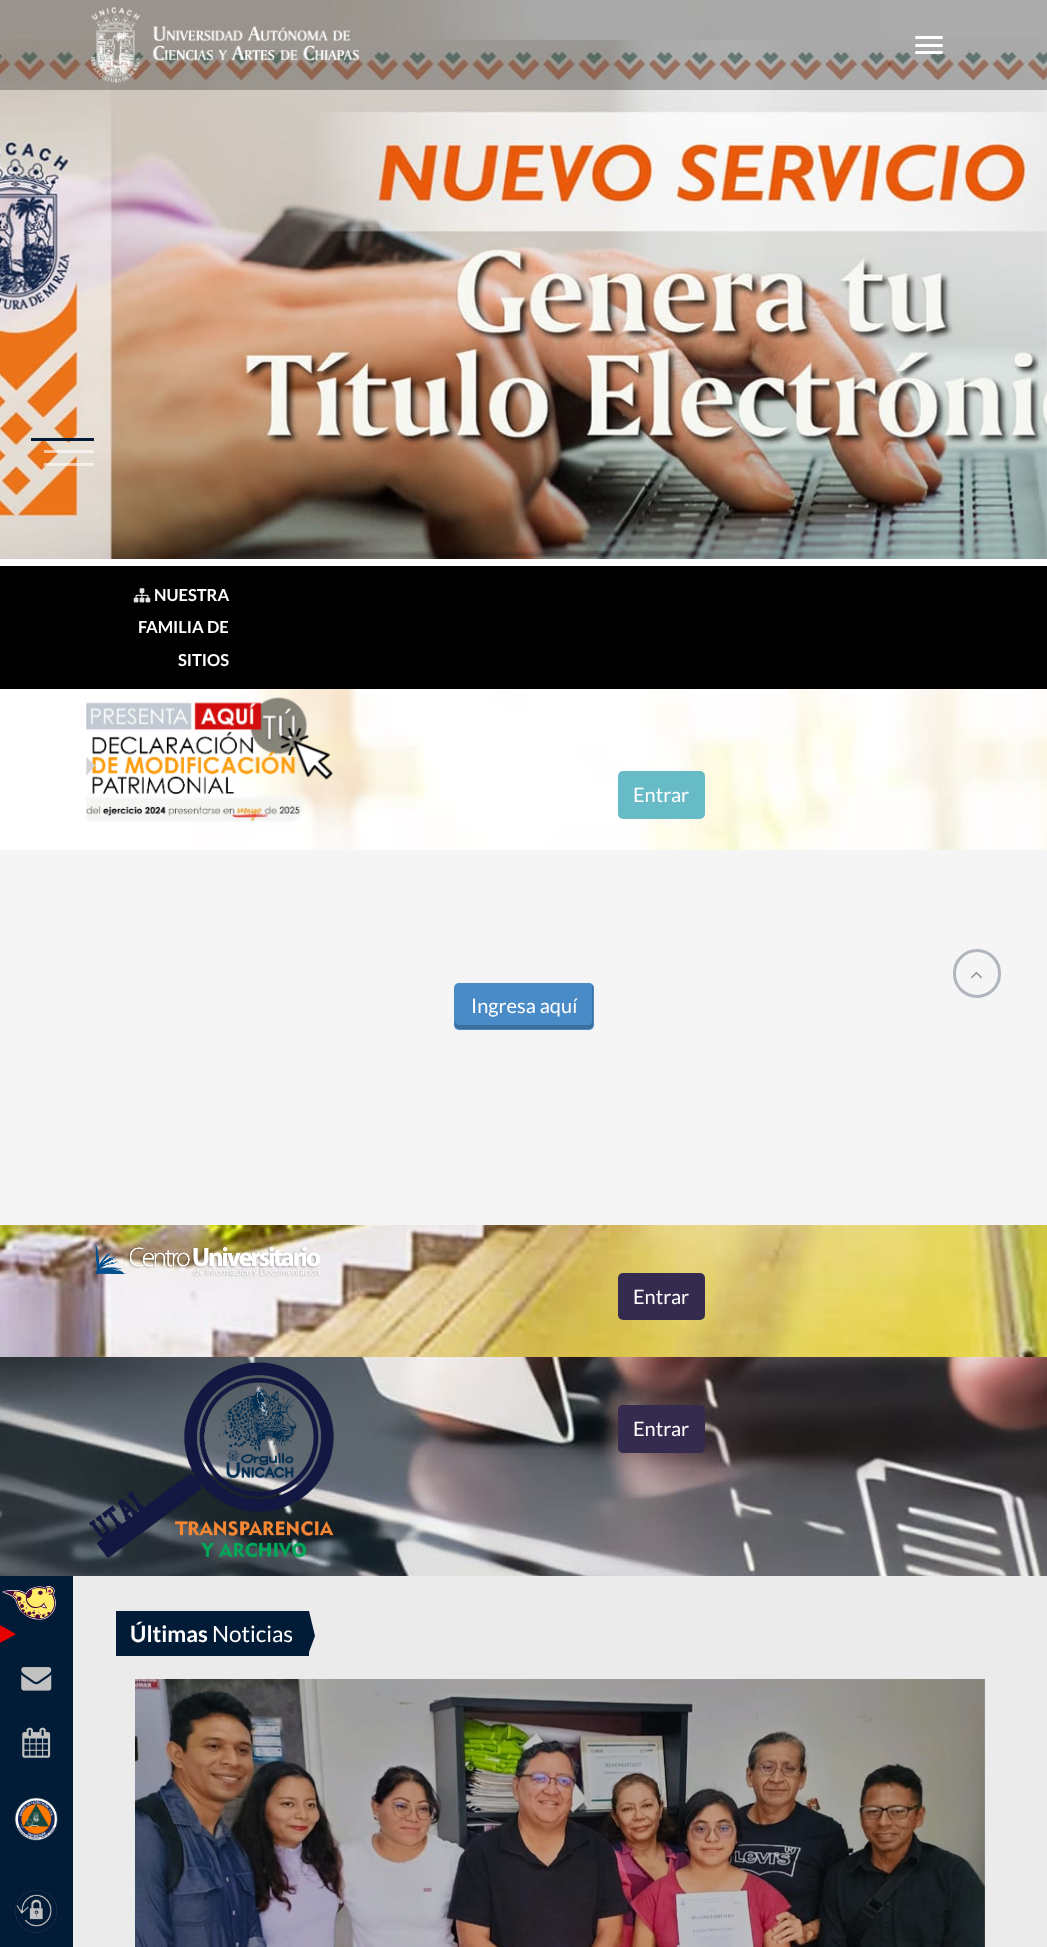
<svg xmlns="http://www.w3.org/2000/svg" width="1047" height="1947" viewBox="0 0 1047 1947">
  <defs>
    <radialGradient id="g1" gradientUnits="userSpaceOnUse" cx="0" cy="0" r="1" gradientTransform="matrix(524 0 0 6.8 524 555)"><stop offset="0" stop-color="rgb(0,0,0)" stop-opacity="0.25"/><stop offset="0.7" stop-color="rgb(0,0,0)" stop-opacity="0"/></radialGradient>
  </defs>
  <rect width="100%" height="100%" fill="rgb(245,245,245)"/>
  <image x="0" y="0" width="1047" height="559" href="pic1.png"/>
  <rect x="31" y="438" width="63" height="3" fill="rgb(2,28,55)"/>
  <rect x="44" y="450" width="50" height="3" fill="rgba(255,255,255,0.6)"/>
  <rect x="44" y="463" width="50" height="3" fill="rgba(255,255,255,0.6)"/>
  <rect x="261" y="551" width="596" height="8" fill="url(#g1)"/>
  <rect x="0" y="559" width="1047" height="7" fill="rgb(255,255,255)"/>
  <rect x="0" y="0" width="1047" height="90" fill="rgba(0,0,0,0.26)"/>
  <image x="91" y="7" width="268" height="76" href="pic2.png"/>
  <rect x="915" y="36" width="28" height="3" rx="1.5" fill="rgb(255,255,255)"/>
  <rect x="915" y="44" width="28" height="3" rx="1.5" fill="rgb(255,255,255)"/>
  <rect x="915" y="51" width="28" height="3" rx="1.5" fill="rgb(255,255,255)"/>
  <rect x="0" y="566" width="1047" height="123" fill="rgb(0,0,0)"/>
  <image x="133" y="588" width="18" height="15" href="pic3.png"/>
  <g font-family="Lato" font-size="16.5" font-weight="bold" fill="rgb(255,255,255)">
    <text x="154" y="601">NUESTRA</text>
    <text x="138" y="633">FAMILIA DE</text>
    <text x="178" y="666">SITIOS</text>
  </g>
  <image x="0" y="689" width="1047" height="161" href="pic4.png"/>
  <image x="86" y="697" width="247" height="125" href="pic5.png"/>
  <rect x="618" y="771" width="87" height="48" rx="5" fill="rgb(102,187,198)"/>
  <text x="633" y="802" font-family="Lato" font-size="20" fill="rgb(255,255,255)">Entrar</text>
  <rect x="454" y="983" width="140" height="47" rx="5" fill="rgb(73,139,198)"/>
  <path d="M455 1021V1025C455 1027 457 1029 459 1029H589C591 1029 593 1027 593 1025V988C593 987 593 986 592 985V1021C592 1023 591 1025 589 1025H459C457 1025 455 1023 455 1021Z" fill="rgb(58,111,158)"/>
  <text x="471" y="1013" font-family="Lato" font-size="20" fill="rgb(255,255,255)">Ingresa aquí</text>
  <image x="0" y="1225" width="1047" height="132" href="pic6.png"/>
  <image x="95" y="1244" width="225" height="33" href="pic7.png"/>
  <rect x="618" y="1273" width="87" height="47" rx="5" fill="rgb(52,43,78)"/>
  <text x="633" y="1304" font-family="Lato" font-size="20" fill="rgb(255,255,255)">Entrar</text>
  <image x="0" y="1357" width="1047" height="219" href="pic8.png"/>
  <image x="88" y="1362" width="246" height="196" href="pic9.png"/>
  <rect x="618" y="1405" width="87" height="48" rx="5" fill="rgb(52,43,78)"/>
  <text x="633" y="1436" font-family="Lato" font-size="20" fill="rgb(255,255,255)">Entrar</text>
  <rect x="0" y="1576" width="73" height="371" fill="rgb(2,28,55)"/>
  <image x="2" y="1586" width="54" height="34" href="pic10.png"/>
  <image x="0" y="1625" width="16" height="18" href="pic11.png"/>
  <image x="21" y="1667" width="31" height="24" href="pic12.png"/>
  <image x="22" y="1727" width="29" height="31" href="pic13.png"/>
  <image x="14" y="1797" width="44" height="44" href="pic14.png"/>
  <image x="15" y="1890" width="42" height="43" href="pic15.png"/>
  <rect x="73" y="1576" width="974" height="371" fill="rgb(235,235,235)"/>
  <rect x="116" y="1611" width="193" height="45" fill="rgb(2,28,55)"/>
  <text x="130" y="1642" font-family="Lato" font-size="22.5" font-weight="bold" fill="rgb(255,255,255)">Últimas</text>
  <text x="212" y="1642" font-family="Lato" font-size="22.5" fill="rgb(255,255,255)">Noticias</text>
  <path d="M309 1652V1611L315 1636Z" fill="rgb(2,28,55)"/>
  <image x="135" y="1679" width="850" height="268" href="pic16.png"/>
  <rect x="954.5" y="950.5" width="45" height="46" rx="22.5" fill="none" stroke="rgb(177,181,188)" stroke-width="3"/>
  <image x="970" y="971" width="12" height="8" href="pic17.png"/>
</svg>
